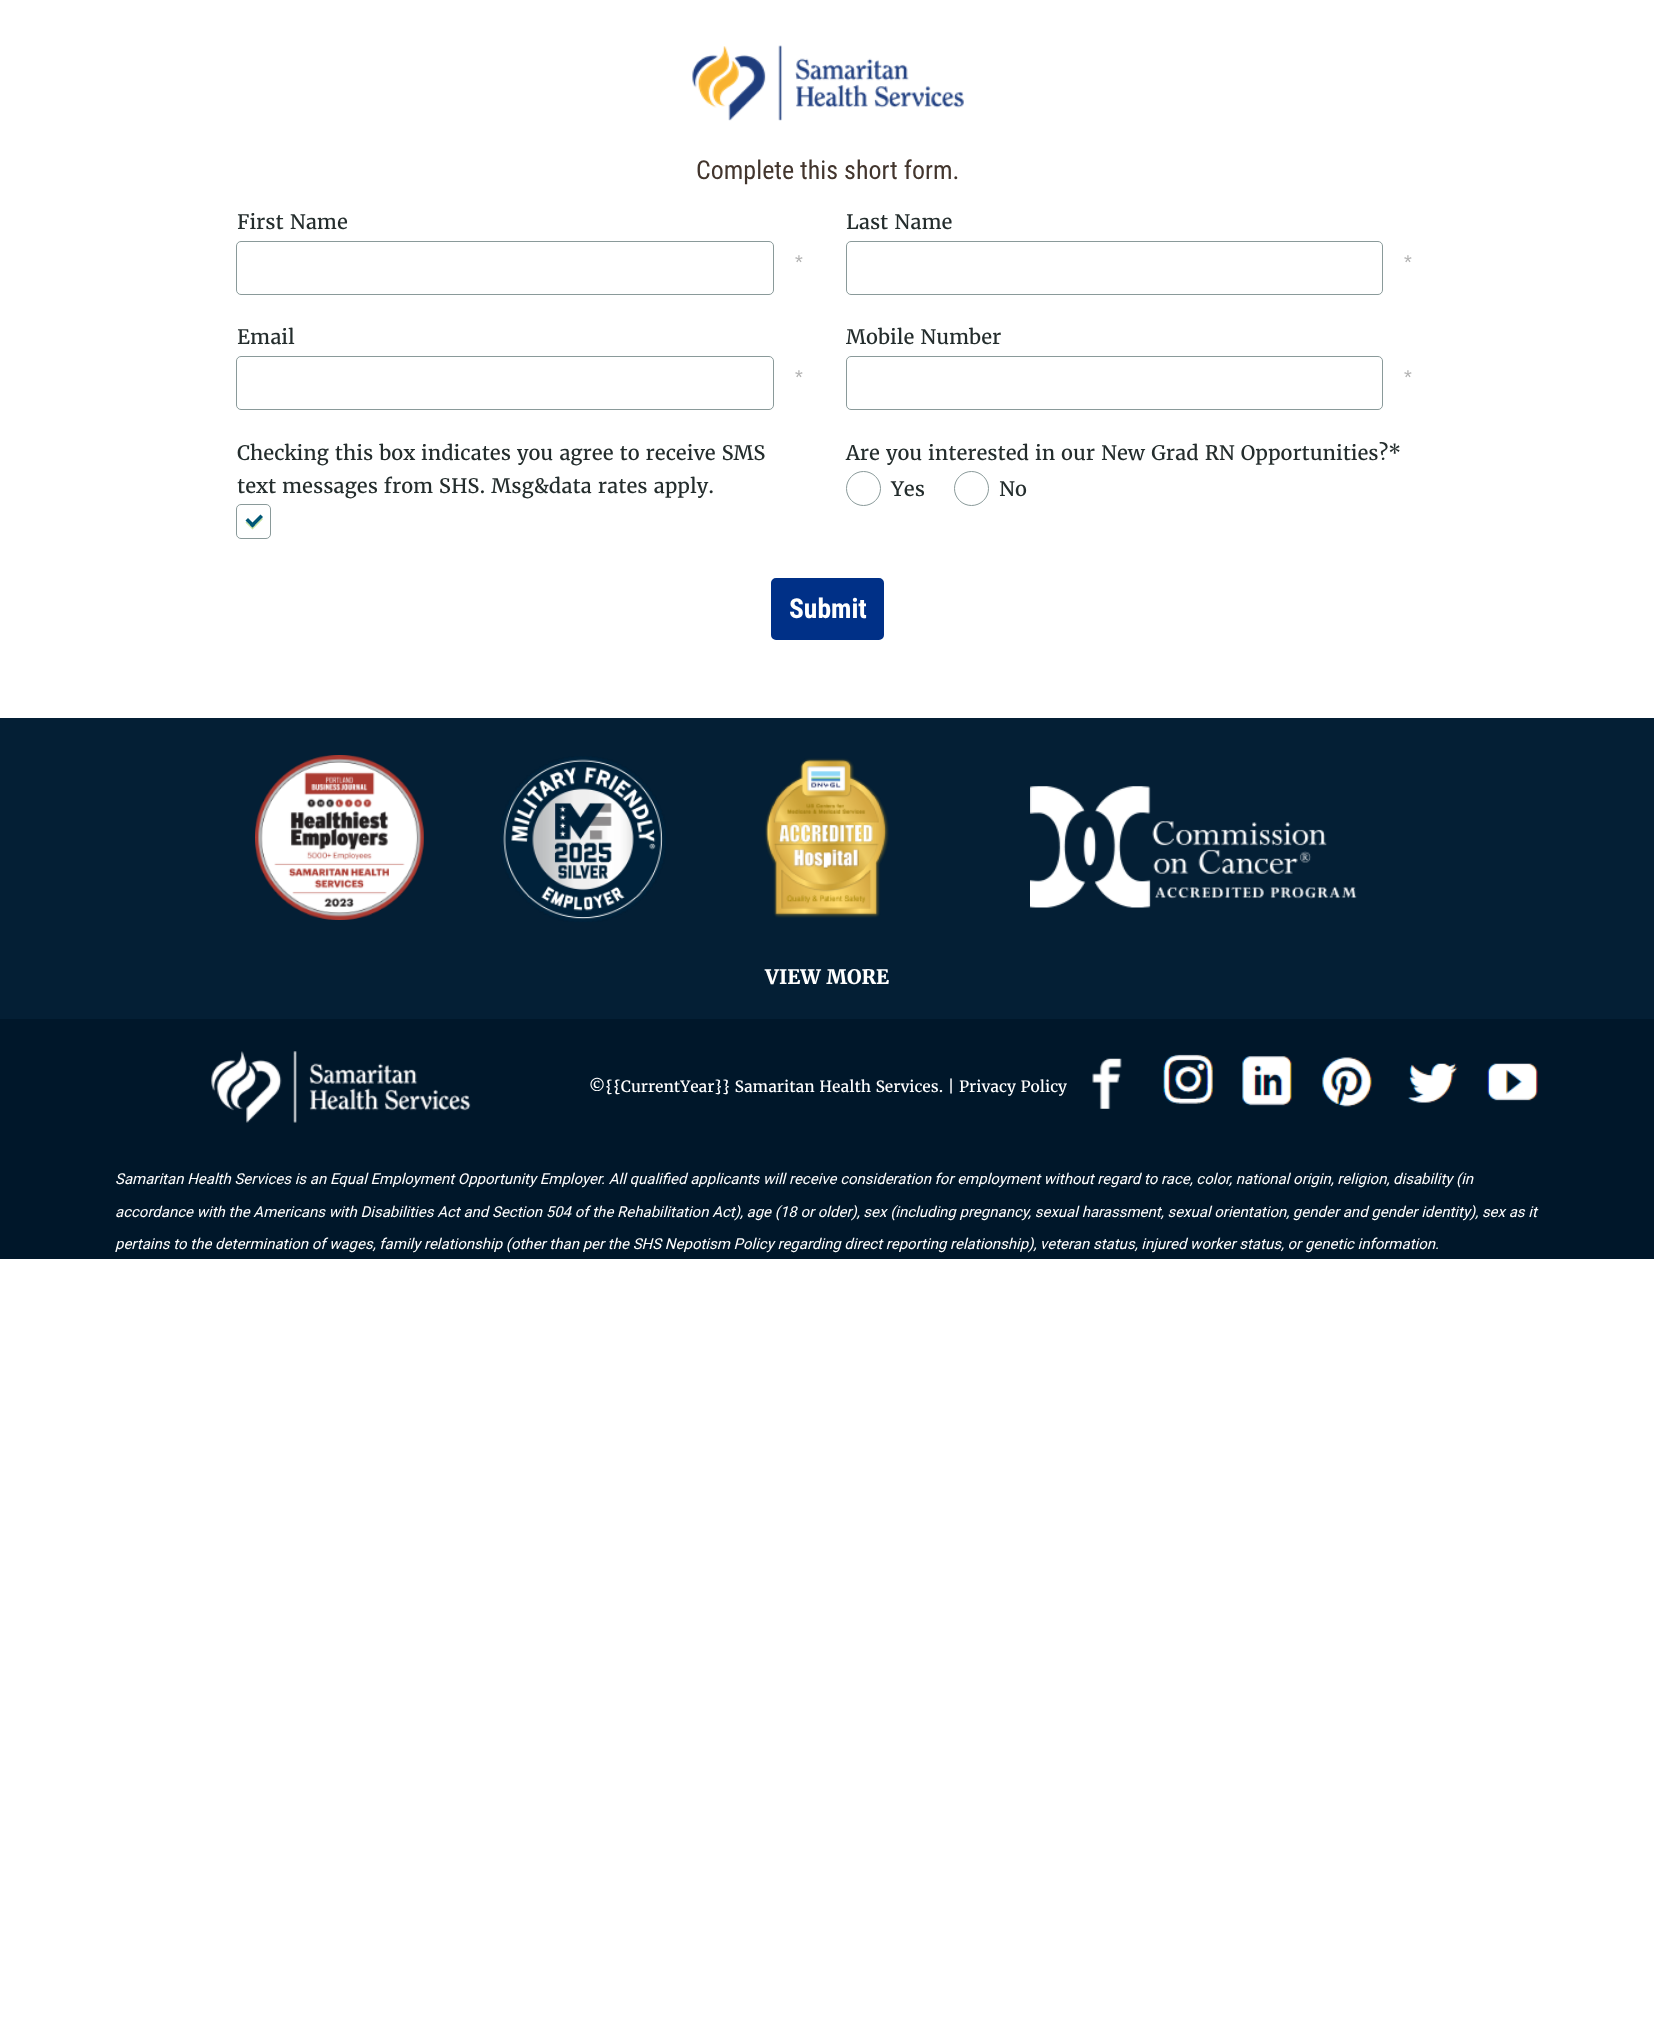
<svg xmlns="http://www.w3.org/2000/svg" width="1654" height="2033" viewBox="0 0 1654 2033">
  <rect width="100%" height="100%" fill="rgb(255,255,255)"/>
  <rect x="0" y="1019" width="1654" height="240" fill="rgb(0,23,42)"/>
  <image x="692" y="45" width="272" height="76" href="pic1.png"/>
  <text x="696" y="179" font-family="Roboto Condensed" font-size="26" fill="rgb(66,53,45)">Complete this short form.</text>
  <text x="237" y="229" font-family="Merriweather" font-size="20" fill="rgb(36,45,45)">First Name</text>
  <rect x="236.5" y="241.5" width="537" height="53" rx="4.5" fill="none" stroke="rgb(138,154,154)"/>
  <text x="795" y="269" font-family="Liberation Sans" font-size="20" fill="rgb(179,179,179)">*</text>
  <text x="846" y="229" font-family="Merriweather" font-size="20" fill="rgb(36,45,45)">Last Name</text>
  <rect x="846.5" y="241.5" width="536" height="53" rx="4.5" fill="none" stroke="rgb(138,154,154)"/>
  <text x="1404" y="269" font-family="Liberation Sans" font-size="20" fill="rgb(179,179,179)">*</text>
  <text x="237" y="344" font-family="Merriweather" font-size="20" fill="rgb(36,45,45)">Email</text>
  <rect x="236.5" y="356.5" width="537" height="53" rx="4.5" fill="none" stroke="rgb(138,154,154)"/>
  <text x="795" y="384" font-family="Liberation Sans" font-size="20" fill="rgb(179,179,179)">*</text>
  <text x="846" y="344" font-family="Merriweather" font-size="20" fill="rgb(36,45,45)">Mobile Number</text>
  <rect x="846.5" y="356.5" width="536" height="53" rx="4.5" fill="none" stroke="rgb(138,154,154)"/>
  <text x="1404" y="384" font-family="Liberation Sans" font-size="20" fill="rgb(179,179,179)">*</text>
  <g font-family="Merriweather" font-size="20" fill="rgb(36,45,45)">
    <text>
      <tspan x="237" y="460">Checking this box indicates you agree to receive SMS</tspan>
      <tspan x="237" y="493">text messages from SHS. Msg&amp;data rates apply.</tspan>
    </text>
  </g>
  <rect x="236.5" y="504.5" width="34" height="34" rx="4.5" fill="none" stroke="rgb(138,154,154)"/>
  <path d="M246.5 521.5L245.5 522.5L252.5 529.5L263 519L262 518L252.5 527.5Z" fill="rgb(198,227,159)"/>
  <path d="M260.5 514.5L263 517L252.5 527.5L250 525Z" fill="rgb(0,87,118)"/>
  <path d="M248 518L255 525L252.5 527.5L245.5 520.5Z" fill="rgb(0,87,118)"/>
  <text x="846" y="460" font-family="Merriweather" font-size="20" fill="rgb(36,45,45)">Are you interested in our New Grad RN Opportunities?*</text>
  <circle cx="863.5" cy="488.5" r="17" fill="none" stroke="rgb(138,154,154)"/>
  <text x="891" y="496" font-family="Merriweather" font-size="20" fill="rgb(36,45,45)">Yes</text>
  <circle cx="971.5" cy="488.5" r="17" fill="none" stroke="rgb(138,154,154)"/>
  <text x="999" y="496" font-family="Merriweather" font-size="20" fill="rgb(36,45,45)">No</text>
  <rect x="772.5" y="579.5" width="110" height="59" rx="3.5" fill="rgb(0,48,135)" stroke="rgb(0,48,135)" stroke-width="3"/>
  <text x="789" y="618" font-family="Roboto Condensed" font-size="27.5" font-weight="bold" fill="rgb(255,255,255)">Submit</text>
  <rect x="0" y="718" width="1654" height="301" fill="rgb(4,31,53)"/>
  <image x="255" y="755" width="169" height="165" href="pic2.png"/>
  <image x="500" y="756" width="166" height="166" href="pic3.png"/>
  <image x="765" y="758" width="124" height="160" href="pic4.png"/>
  <image x="1030" y="786" width="327" height="122" href="pic5.png"/>
  <text x="765" y="984" font-family="Merriweather" font-size="20" font-weight="bold" fill="rgb(255,255,255)">VIEW MORE</text>
  <image x="211" y="1051" width="260" height="72" href="pic6.png"/>
  <text x="589" y="1092" font-family="Merriweather" font-size="15.5" fill="rgb(255,255,255)">©{{CurrentYear}} Samaritan Health Services. | Privacy Policy</text>
  <image x="1092" y="1058" width="30" height="51" href="pic7.png"/>
  <image x="1163" y="1054" width="50" height="50" href="pic8.png"/>
  <image x="1242" y="1056" width="50" height="50" href="pic9.png"/>
  <image x="1322" y="1057" width="50" height="50" href="pic10.png"/>
  <image x="1408" y="1063" width="50" height="40" href="pic11.png"/>
  <image x="1487" y="1063" width="51" height="38" href="pic12.png"/>
  <g font-family="Roboto" font-size="15" font-style="italic" fill="rgb(255,255,255)">
    <text x="115" y="1184">Samaritan Health Services is an Equal Employment Opportunity Employer. All qualified applicants will receive consideration for employment without regard to race, color, national origin, religion, disability (in</text>
    <text x="115" y="1217">accordance with the Americans with Disabilities Act and Section 504 of the Rehabilitation Act), age (18 or older), sex (including pregnancy, sexual harassment, sexual orientation, gender and gender identity), sex as it</text>
    <text x="115" y="1249">pertains to the determination of wages, family relationship (other than per the SHS Nepotism Policy regarding direct reporting relationship), veteran status, injured worker status, or genetic information.</text>
  </g>
</svg>
